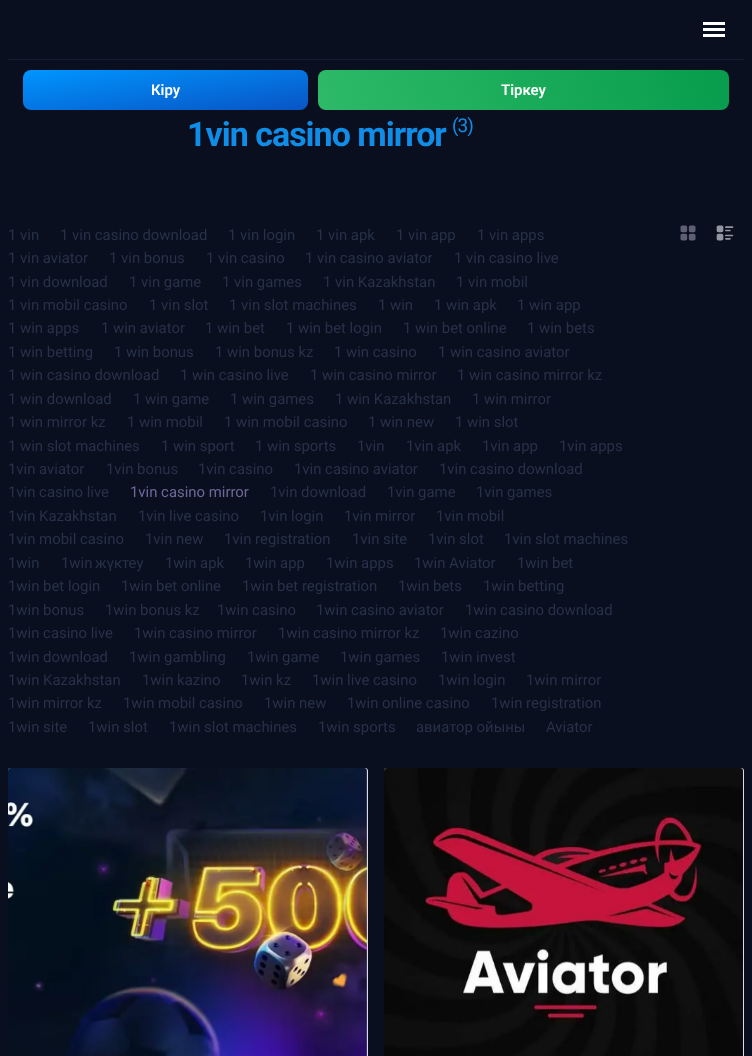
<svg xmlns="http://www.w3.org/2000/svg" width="752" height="1056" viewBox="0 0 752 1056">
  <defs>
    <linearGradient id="g1" gradientUnits="userSpaceOnUse" x1="160" y1="51" x2="171" y2="129"><stop offset="0" stop-color="rgb(0,149,255)"/><stop offset="1" stop-color="rgb(8,85,196)"/></linearGradient>
    <linearGradient id="g2" gradientUnits="userSpaceOnUse" x1="306" y1="169" x2="711" y2="22"><stop offset="0" stop-color="rgb(49,188,105)"/><stop offset="0.96" stop-color="rgb(8,158,78)"/></linearGradient>
  </defs>
  <rect width="100%" height="100%" fill="rgb(9,15,30)"/>
  <rect x="8" y="59" width="736" height="1" fill="rgb(20,27,46)"/>
  <rect x="703" y="28" width="22" height="3" fill="rgb(255,255,255)"/>
  <rect x="703" y="22" width="22" height="3" fill="rgb(255,255,255)"/>
  <rect x="703" y="34" width="22" height="3" fill="rgb(255,255,255)"/>
  <rect x="23" y="70" width="285" height="40" rx="8" fill="url(#g1)"/>
  <text x="151" y="95" font-family="Roboto" font-size="14.9" font-weight="600" fill="rgb(255,255,255)">Кіру</text>
  <rect x="318" y="70" width="411" height="40" rx="8" fill="url(#g2)"/>
  <text x="501" y="95" font-family="Roboto" font-size="14.9" font-weight="600" fill="rgb(255,255,255)">Тіркеу</text>
  <text x="187" y="146" font-family="Roboto" font-size="34" font-weight="bold" letter-spacing="-1" fill="rgb(16,141,231)">1vin casino mirror</text>
  <text x="452" y="132" font-family="Roboto" font-size="19" letter-spacing="-1" fill="rgb(16,141,231)">(3)</text>
  <g font-family="Roboto" font-size="14.9" fill="rgb(40,49,73)">
    <text x="8" y="240">1 vin</text>
    <text x="60" y="240">1 vin casino download</text>
    <text x="228" y="240">1 vin login</text>
    <text x="316" y="240">1 vin apk</text>
    <text x="396" y="240">1 vin app</text>
    <text x="477" y="240">1 vin apps</text>
    <text x="8" y="263">1 vin aviator</text>
    <text x="109" y="263">1 vin bonus</text>
    <text x="206" y="263">1 vin casino</text>
    <text x="305" y="263">1 vin casino aviator</text>
    <text x="454" y="263">1 vin casino live</text>
    <text x="8" y="287">1 vin download</text>
    <text x="129" y="287">1 vin game</text>
    <text x="222" y="287">1 vin games</text>
    <text x="323" y="287">1 vin Kazakhstan</text>
    <text x="456" y="287">1 vin mobil</text>
    <text x="8" y="310">1 vin mobil casino</text>
    <text x="149" y="310">1 vin slot</text>
    <text x="229" y="310">1 vin slot machines</text>
    <text x="378" y="310">1 win</text>
    <text x="434" y="310">1 win apk</text>
    <text x="517" y="310">1 win app</text>
    <text x="8" y="333">1 win apps</text>
    <text x="101" y="333">1 win aviator</text>
    <text x="205" y="333">1 win bet</text>
    <text x="286" y="333">1 win bet login</text>
    <text x="403" y="333">1 win bet online</text>
    <text x="527" y="333">1 win bets</text>
    <text x="8" y="357">1 win betting</text>
    <text x="114" y="357">1 win bonus</text>
    <text x="215" y="357">1 win bonus kz</text>
    <text x="334" y="357">1 win casino</text>
    <text x="438" y="357">1 win casino aviator</text>
    <text x="8" y="380">1 win casino download</text>
    <text x="180" y="380">1 win casino live</text>
    <text x="310" y="380">1 win casino mirror</text>
    <text x="457" y="380">1 win casino mirror kz</text>
    <text x="8" y="404">1 win download</text>
    <text x="133" y="404">1 win game</text>
    <text x="230" y="404">1 win games</text>
    <text x="335" y="404">1 win Kazakhstan</text>
    <text x="472" y="404">1 win mirror</text>
    <text x="8" y="427">1 win mirror kz</text>
    <text x="127" y="427">1 win mobil</text>
    <text x="224" y="427">1 win mobil casino</text>
    <text x="368" y="427">1 win new</text>
    <text x="455" y="427">1 win slot</text>
    <text x="8" y="451">1 win slot machines</text>
    <text x="161" y="451">1 win sport</text>
    <text x="255" y="451">1 win sports</text>
    <text x="357" y="451">1vin</text>
    <text x="406" y="451">1vin apk</text>
    <text x="482" y="451">1vin app</text>
    <text x="559" y="451">1vin apps</text>
    <text x="8" y="474">1vin aviator</text>
    <text x="106" y="474">1vin bonus</text>
    <text x="198" y="474">1vin casino</text>
    <text x="294" y="474">1vin casino aviator</text>
    <text x="439" y="474">1vin casino download</text>
    <text x="8" y="497">1vin casino live</text>
  </g>
  <text x="130" y="497" font-family="Roboto" font-size="14.9" fill="rgb(111,104,155)">1vin casino mirror</text>
  <g font-family="Roboto" font-size="14.9" fill="rgb(40,49,73)">
    <text x="270" y="497">1vin download</text>
    <text x="387" y="497">1vin game</text>
    <text x="476" y="497">1vin games</text>
    <text x="8" y="521">1vin Kazakhstan</text>
    <text x="138" y="521">1vin live casino</text>
    <text x="260" y="521">1vin login</text>
    <text x="344" y="521">1vin mirror</text>
    <text x="436" y="521">1vin mobil</text>
    <text x="8" y="544">1vin mobil casino</text>
    <text x="145" y="544">1vin new</text>
    <text x="224" y="544">1vin registration</text>
    <text x="352" y="544">1vin site</text>
    <text x="428" y="544">1vin slot</text>
    <text x="504" y="544">1vin slot machines</text>
    <text x="8" y="568">1win</text>
    <text x="61" y="568" word-spacing="-1">1win жүктеу</text>
    <text x="165" y="568">1win apk</text>
    <text x="245" y="568">1win app</text>
    <text x="326" y="568">1win apps</text>
    <text x="414" y="568">1win Aviator</text>
    <text x="517" y="568">1win bet</text>
    <text x="8" y="591">1win bet login</text>
    <text x="121" y="591">1win bet online</text>
    <text x="242" y="591">1win bet registration</text>
    <text x="398" y="591">1win bets</text>
    <text x="483" y="591">1win betting</text>
    <text x="8" y="615">1win bonus</text>
    <text x="105" y="615">1win bonus kz</text>
    <text x="217" y="615">1win casino</text>
    <text x="316" y="615">1win casino aviator</text>
    <text x="465" y="615">1win casino download</text>
    <text x="8" y="638">1win casino live</text>
    <text x="134" y="638">1win casino mirror</text>
    <text x="278" y="638">1win casino mirror kz</text>
    <text x="440" y="638">1win cazino</text>
    <text x="8" y="662">1win download</text>
    <text x="129" y="662">1win gambling</text>
    <text x="247" y="662">1win game</text>
    <text x="340" y="662">1win games</text>
    <text x="441" y="662">1win invest</text>
    <text x="8" y="685">1win Kazakhstan</text>
    <text x="142" y="685">1win kazino</text>
    <text x="241" y="685">1win kz</text>
    <text x="312" y="685">1win live casino</text>
    <text x="438" y="685">1win login</text>
    <text x="526" y="685">1win mirror</text>
    <text x="8" y="708">1win mirror kz</text>
    <text x="123" y="708">1win mobil casino</text>
    <text x="264" y="708">1win new</text>
    <text x="347" y="708">1win online casino</text>
    <text x="491" y="708">1win registration</text>
    <text x="8" y="732">1win site</text>
    <text x="88" y="732">1win slot</text>
    <text x="169" y="732">1win slot machines</text>
    <text x="318" y="732">1win sports</text>
    <text x="416" y="732">авиатор ойыны</text>
    <text x="546" y="732">Aviator</text>
  </g>
  <image x="680" y="225" width="16" height="16" href="pic1.png"/>
  <image x="716" y="225" width="18" height="16" href="pic2.png"/>
  <rect x="8" y="768" width="360" height="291" rx="3" fill="rgb(219,221,230)"/>
  <image x="8" y="768" width="359" height="288" href="pic3.png"/>
  <rect x="384" y="768" width="360" height="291" rx="3" fill="rgb(219,221,230)"/>
  <image x="384" y="768" width="359" height="288" href="pic4.png"/>
</svg>
